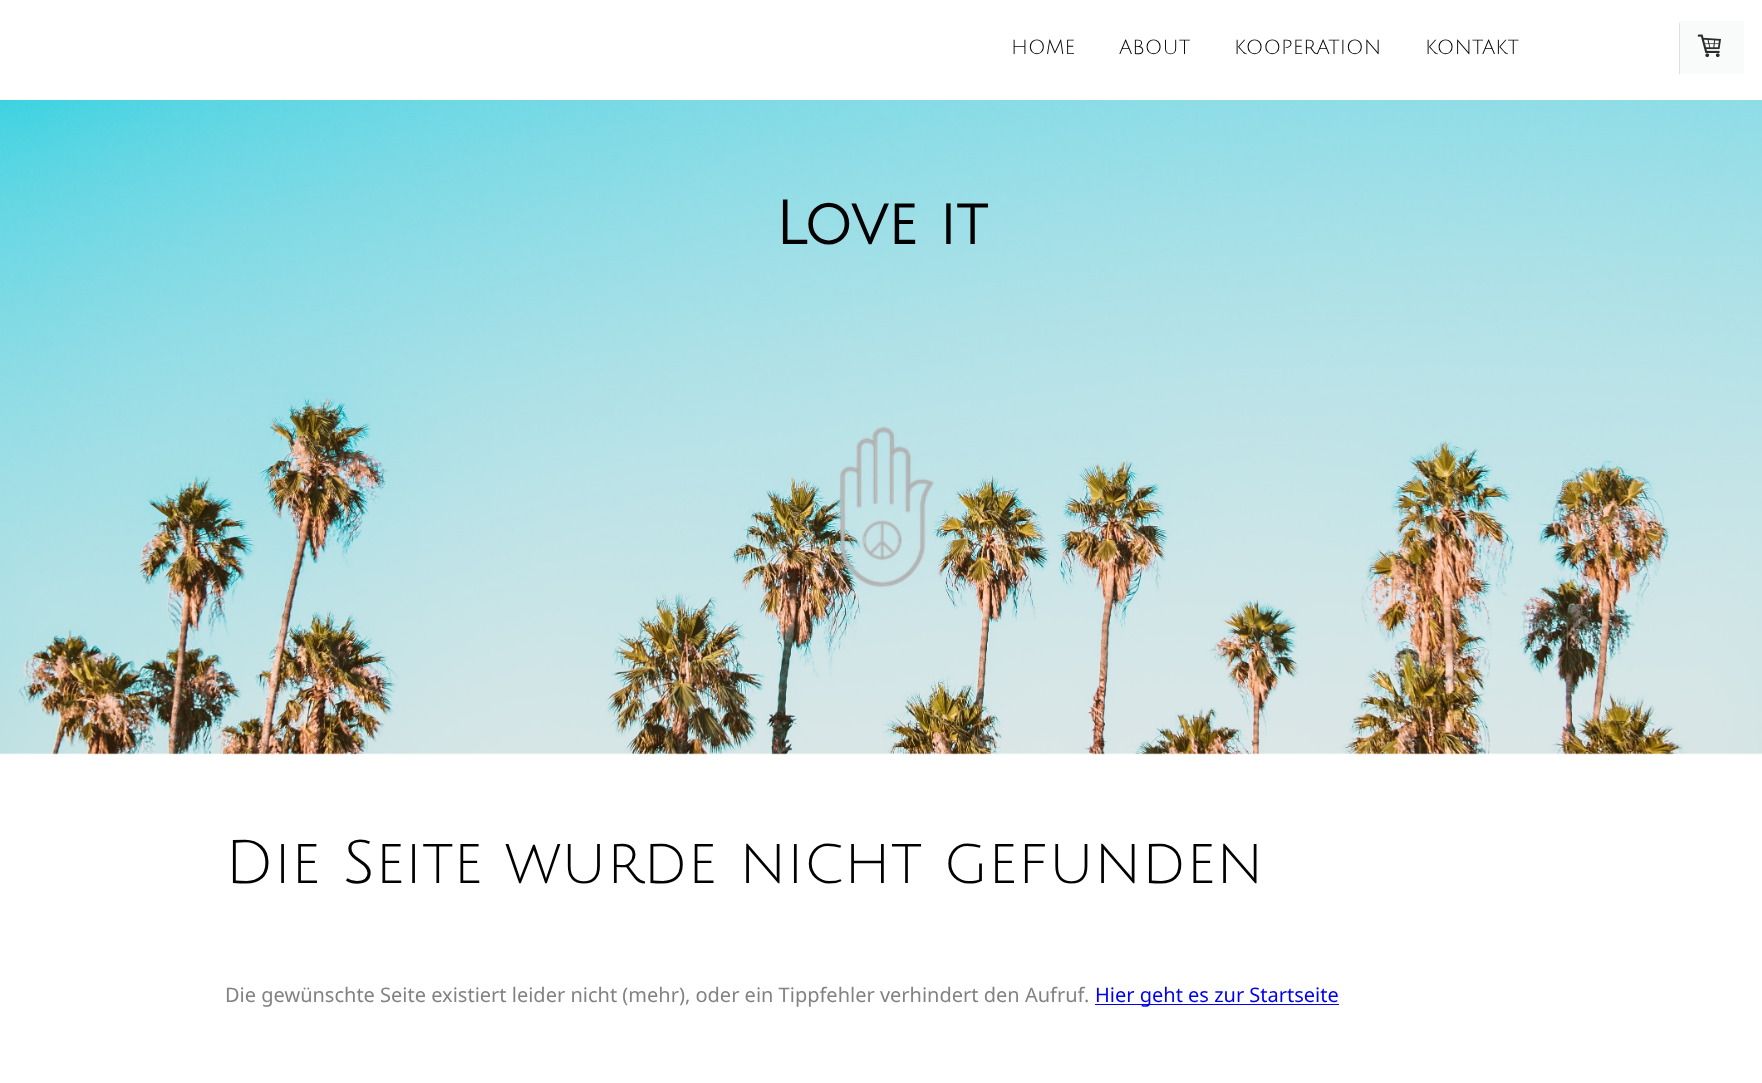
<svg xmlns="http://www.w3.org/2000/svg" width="1762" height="1083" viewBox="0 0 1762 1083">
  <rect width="100%" height="100%" fill="rgb(255,255,255)"/>
  <g font-family="Julius Sans One" font-size="20" fill="rgb(0,0,0)">
    <text x="1011" y="54">HOME</text>
    <text x="1119" y="54">ABOUT</text>
    <text x="1234" y="54">KOOPERATION</text>
    <text x="1425" y="54">KONTAKT</text>
  </g>
  <rect x="1679" y="21" width="65" height="53" rx="1" fill="rgb(249,250,250)"/>
  <rect x="1679" y="23" width="1" height="51" fill="rgb(224,225,225)"/>
  <image x="1697" y="34" width="24" height="24" href="pic1.png"/>
  <image x="0" y="100" width="1762" height="655" href="pic2.png"/>
  <text x="775" y="244" font-family="Julius Sans One" font-size="60" font-weight="bold" fill="rgb(0,0,0)">Love it</text>
  <image x="839" y="426" width="95" height="162" href="pic3.png"/>
  <text x="225" y="883" font-family="Julius Sans One" font-size="60" fill="rgb(0,0,0)">Die Seite wurde nicht gefunden</text>
  <text x="225" y="1002" font-family="Noto Sans" font-size="20" fill="rgb(130,130,130)">Die gewünschte Seite existiert leider nicht (mehr), oder ein Tippfehler verhindert den Aufruf.</text>
  <rect x="1095" y="1004" width="244" height="1" fill="rgb(0,0,238)"/>
  <text x="1095" y="1002" font-family="Noto Sans" font-size="20" fill="rgb(0,0,238)">Hier geht es zur Startseite</text>
</svg>
